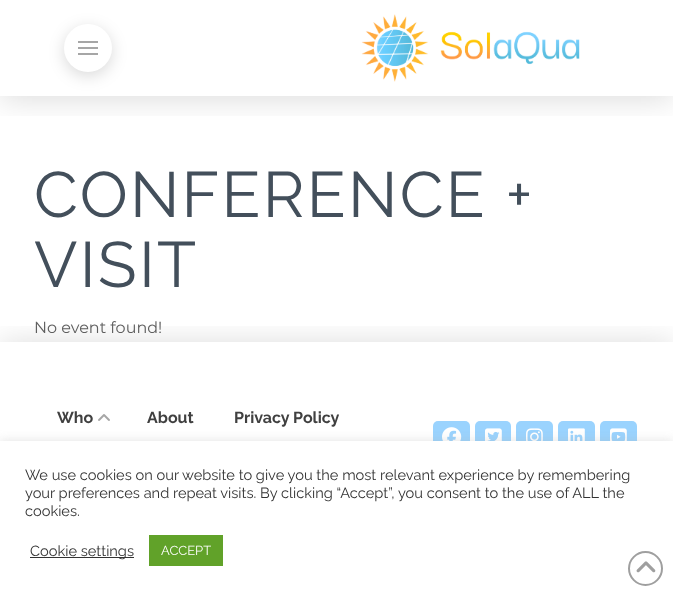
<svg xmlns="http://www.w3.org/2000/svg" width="673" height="596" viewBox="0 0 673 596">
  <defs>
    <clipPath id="clip1"><rect x="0" y="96" width="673" height="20"/></clipPath>
    <clipPath id="clip2"><rect x="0" y="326" width="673" height="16"/></clipPath>
  </defs>
  <rect width="100%" height="100%" fill="rgb(255,255,255)"/>
  <g clip-path="url(#clip1)">
    <rect x="0" y="2" width="673" height="96" fill="rgba(0,0,0,0.15)" filter="blur(16px)"/>
  </g>
  <rect x="64" y="28" width="48" height="48" rx="24" fill="rgba(0,0,0,0.15)" filter="blur(8px)"/>
  <circle cx="88" cy="48" r="24" fill="rgb(255,255,255)"/>
  <rect x="78" y="41" width="20" height="2" fill="rgb(166,166,166)"/>
  <rect x="78" y="47" width="20" height="2" fill="rgb(166,166,166)"/>
  <rect x="78" y="53" width="20" height="2" fill="rgb(166,166,166)"/>
  <image x="361" y="14" width="219" height="68" href="pic1.png"/>
  <g font-family="Raleway" font-size="64" letter-spacing="2.25" fill="rgb(67,79,91)">
    <text>
      <tspan x="34" y="217">CONFERENCE +</tspan>
      <tspan x="34" y="287">VISIT</tspan>
    </text>
  </g>
  <text x="34" y="333" font-family="Montserrat" font-size="16" fill="rgb(98,98,98)">No event found!</text>
  <g clip-path="url(#clip2)">
    <rect x="0" y="344" width="673" height="194" fill="rgba(0,0,0,0.15)" filter="blur(16px)"/>
  </g>
  <text x="57" y="423" font-family="Raleway" font-size="16" font-weight="bold" fill="rgb(64,64,64)">Who</text>
  <image x="98" y="414" width="12" height="7" href="pic2.png"/>
  <g font-family="Raleway" font-size="16" font-weight="bold" fill="rgb(64,64,64)">
    <text x="147" y="423">About</text>
    <text x="234" y="423">Privacy Policy</text>
  </g>
  <rect x="433" y="421" width="37" height="36" rx="5" fill="rgb(154,211,254)"/>
  <image x="442" y="427" width="20" height="14" href="pic3.png"/>
  <rect x="475" y="421" width="36" height="36" rx="5" fill="rgb(154,211,254)"/>
  <image x="485" y="428" width="17" height="13" href="pic4.png"/>
  <rect x="516" y="421" width="37" height="36" rx="5" fill="rgb(154,211,254)"/>
  <image x="526" y="428" width="17" height="13" href="pic5.png"/>
  <rect x="558" y="421" width="37" height="36" rx="5" fill="rgb(154,211,254)"/>
  <image x="568" y="428" width="17" height="13" href="pic6.png"/>
  <rect x="600" y="421" width="37" height="36" rx="5" fill="rgb(154,211,254)"/>
  <image x="610" y="428" width="17" height="13" href="pic7.png"/>
  <rect x="0" y="440" width="673" height="155" fill="rgba(172,171,171,0.3)" filter="blur(5px)"/>
  <rect x="0" y="441" width="673" height="155" fill="rgb(255,255,255)"/>
  <circle cx="645.5" cy="568.5" r="16.5" fill="none" stroke="rgb(159,159,159)" stroke-width="2"/>
  <image x="636" y="561" width="20" height="12" href="pic8.png"/>
  <g font-family="Raleway" font-size="14.65" fill="rgb(51,51,51)">
    <text>
      <tspan x="25" y="480">We use cookies on our website to give you the most relevant experience by remembering</tspan>
      <tspan x="25" y="498">your preferences and repeat visits. By clicking “Accept”, you consent to the use of ALL the</tspan>
      <tspan x="25" y="516">cookies.</tspan>
    </text>
  </g>
  <rect x="30" y="557" width="104" height="1" fill="rgb(51,51,51)"/>
  <text x="30" y="556" font-family="Raleway" font-size="14.65" fill="rgb(51,51,51)">Cookie settings</text>
  <rect x="149" y="535" width="74" height="31" fill="rgb(97,162,41)"/>
  <text x="161" y="555" font-family="Raleway" font-size="13" fill="rgb(255,255,255)">ACCEPT</text>
</svg>
